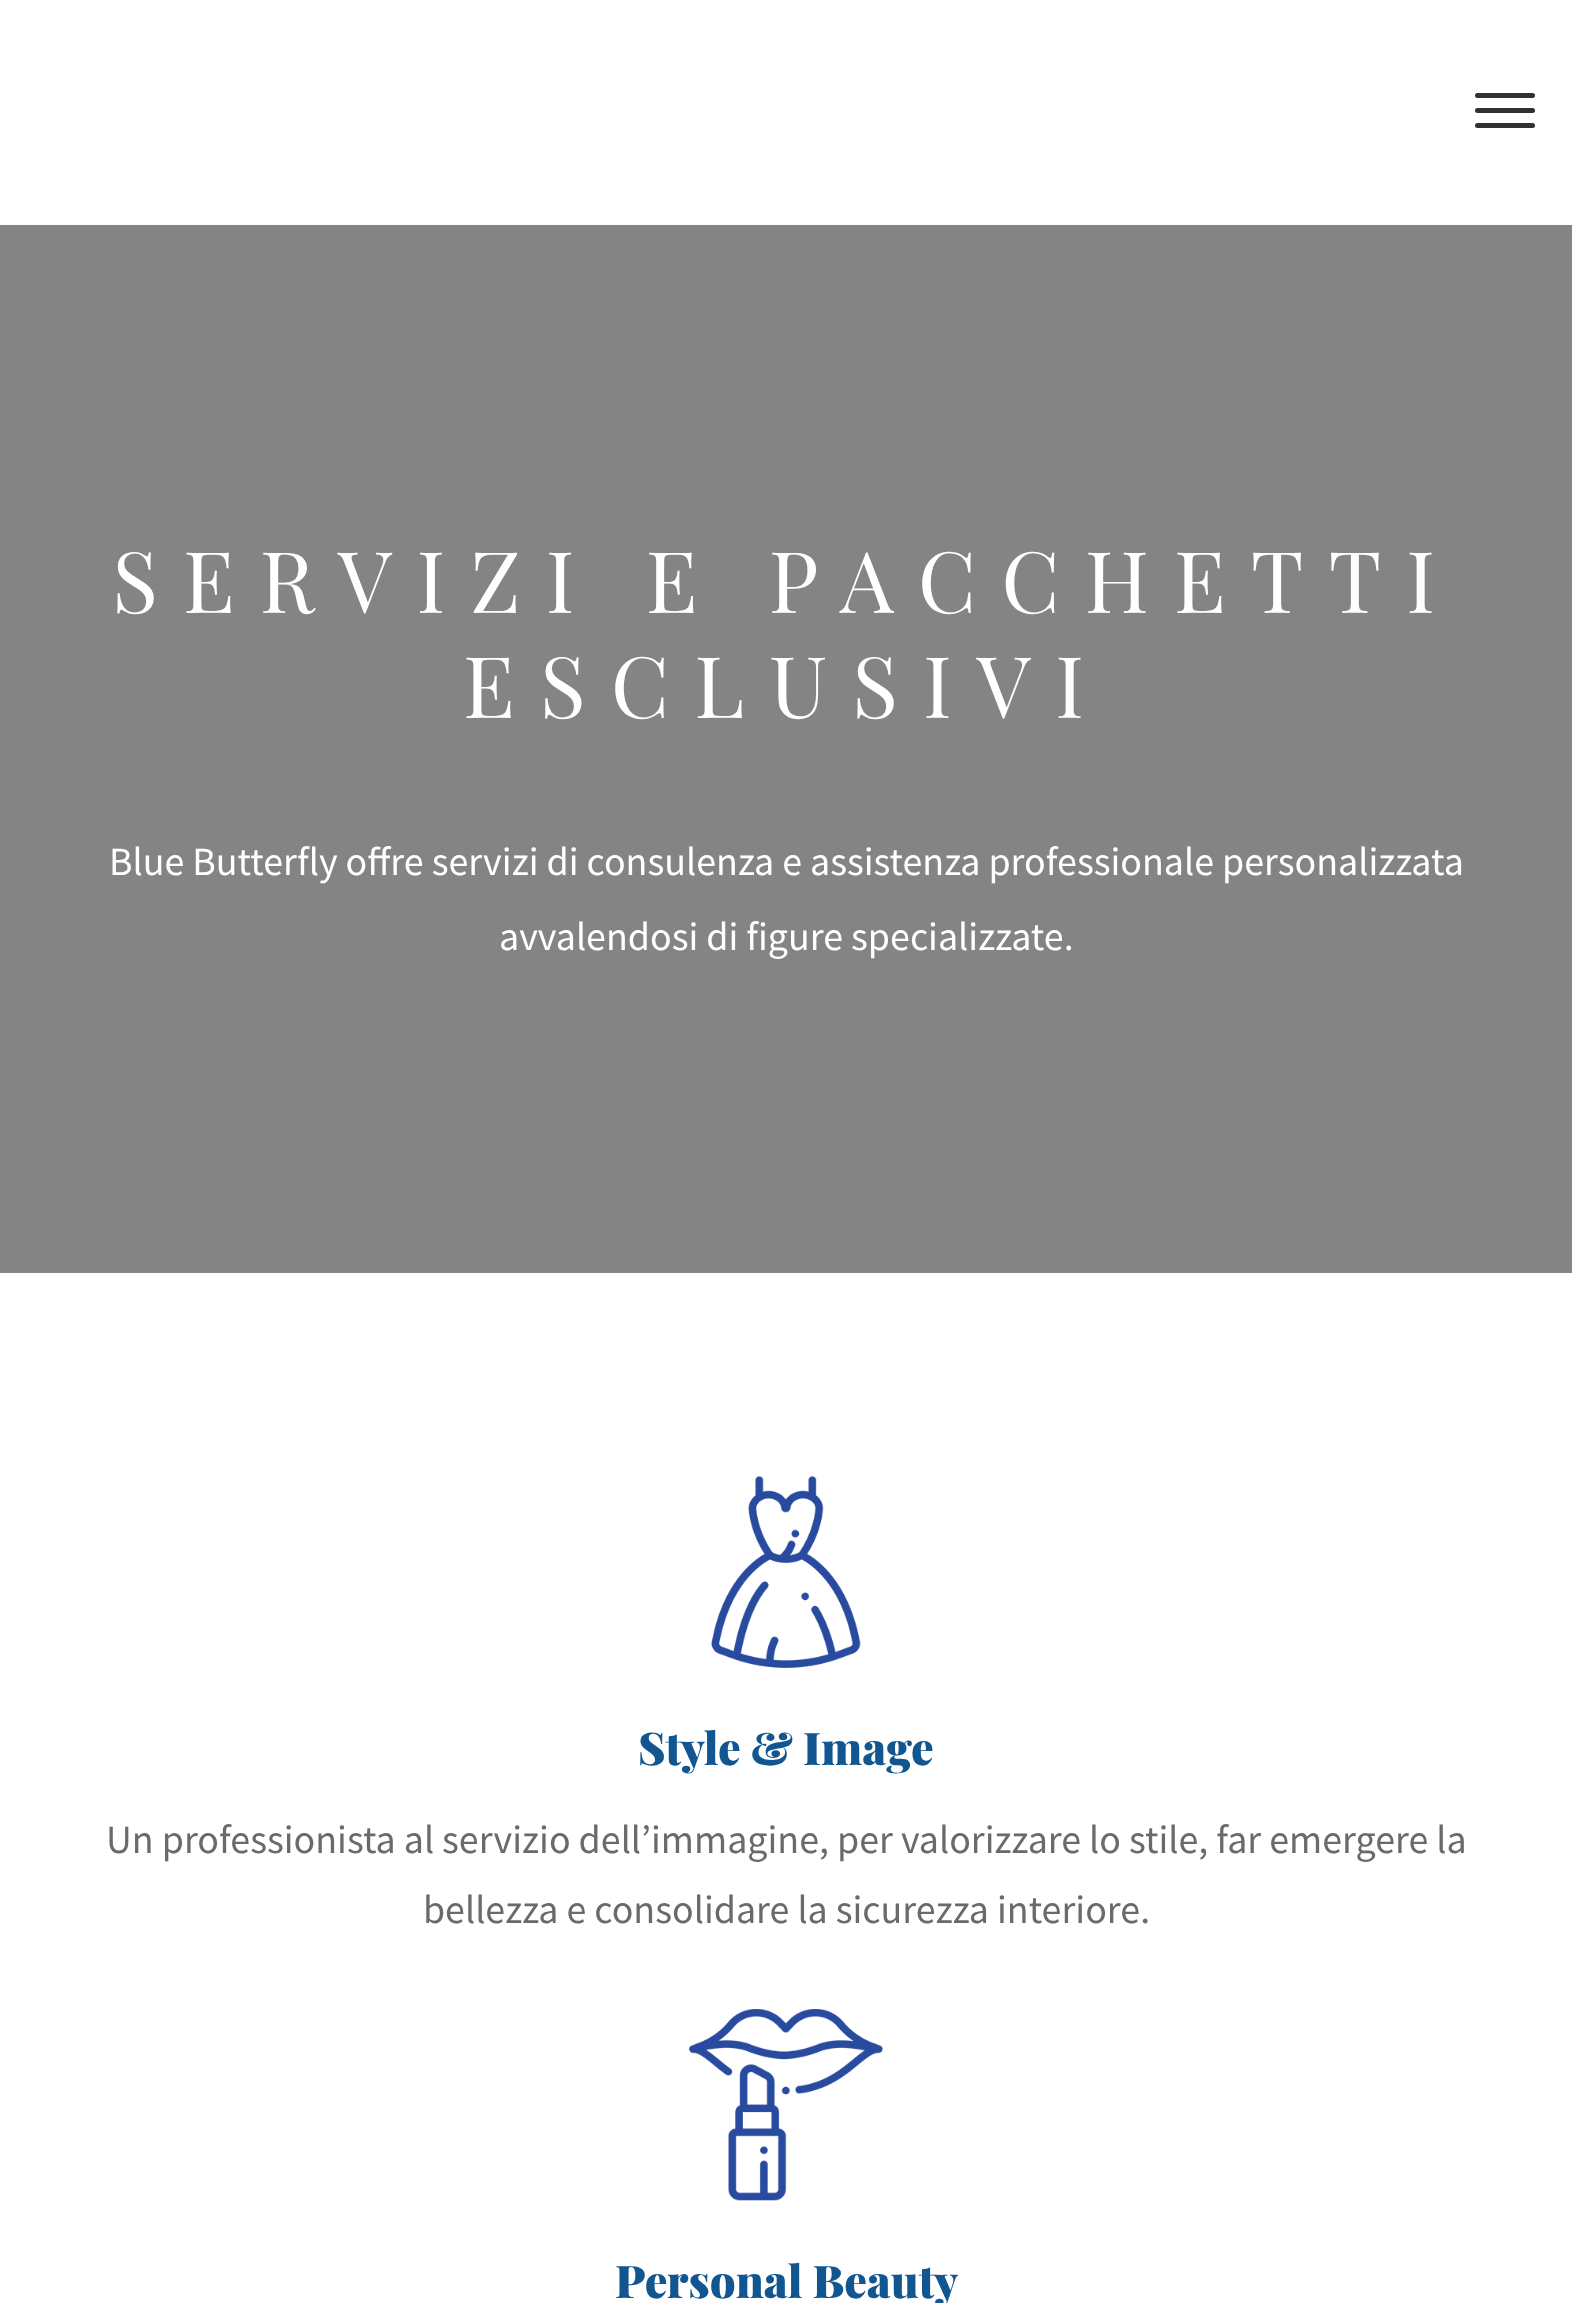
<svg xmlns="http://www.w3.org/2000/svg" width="1572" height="2303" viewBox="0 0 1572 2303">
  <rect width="100%" height="100%" fill="rgb(255,255,255)"/>
  <rect x="1475" y="93" width="60" height="5" rx="2.5" fill="rgb(48,49,51)"/>
  <rect x="1475" y="108" width="60" height="5" rx="2.5" fill="rgb(48,49,51)"/>
  <rect x="1475" y="123" width="60" height="5" rx="2.5" fill="rgb(48,49,51)"/>
  <rect x="0" y="225" width="1572" height="1048" fill="rgb(132,132,132)"/>
  <g font-family="Playfair Display" font-size="85" letter-spacing="25" fill="rgb(255,255,255)">
    <text x="112" y="613">SERVIZI E PACCHETTI</text>
    <text x="463" y="718">ESCLUSIVI</text>
  </g>
  <g font-family="Source Sans Pro" font-size="40" fill="rgb(255,255,255)">
    <text x="109" y="875">Blue Butterfly offre servizi di consulenza e assistenza professionale personalizzata</text>
    <text x="499" y="950">avvalendosi di figure specializzate.</text>
  </g>
  <image x="711" y="1476" width="150" height="192" href="pic1.png"/>
  <text x="638" y="1765" font-family="Playfair Display" font-size="45" font-weight="900" fill="rgb(17,86,145)">Style &amp; Image</text>
  <g font-family="Source Sans Pro" font-size="40" fill="rgb(106,106,106)">
    <text x="106" y="1853">Un professionista al servizio dell’immagine, per valorizzare lo stile, far emergere la</text>
    <text x="423" y="1923">bellezza e consolidare la sicurezza interiore.</text>
  </g>
  <image x="689" y="2009" width="194" height="192" href="pic2.png"/>
  <text x="615" y="2298" font-family="Playfair Display" font-size="45" font-weight="900" fill="rgb(17,86,145)">Personal Beauty</text>
</svg>
